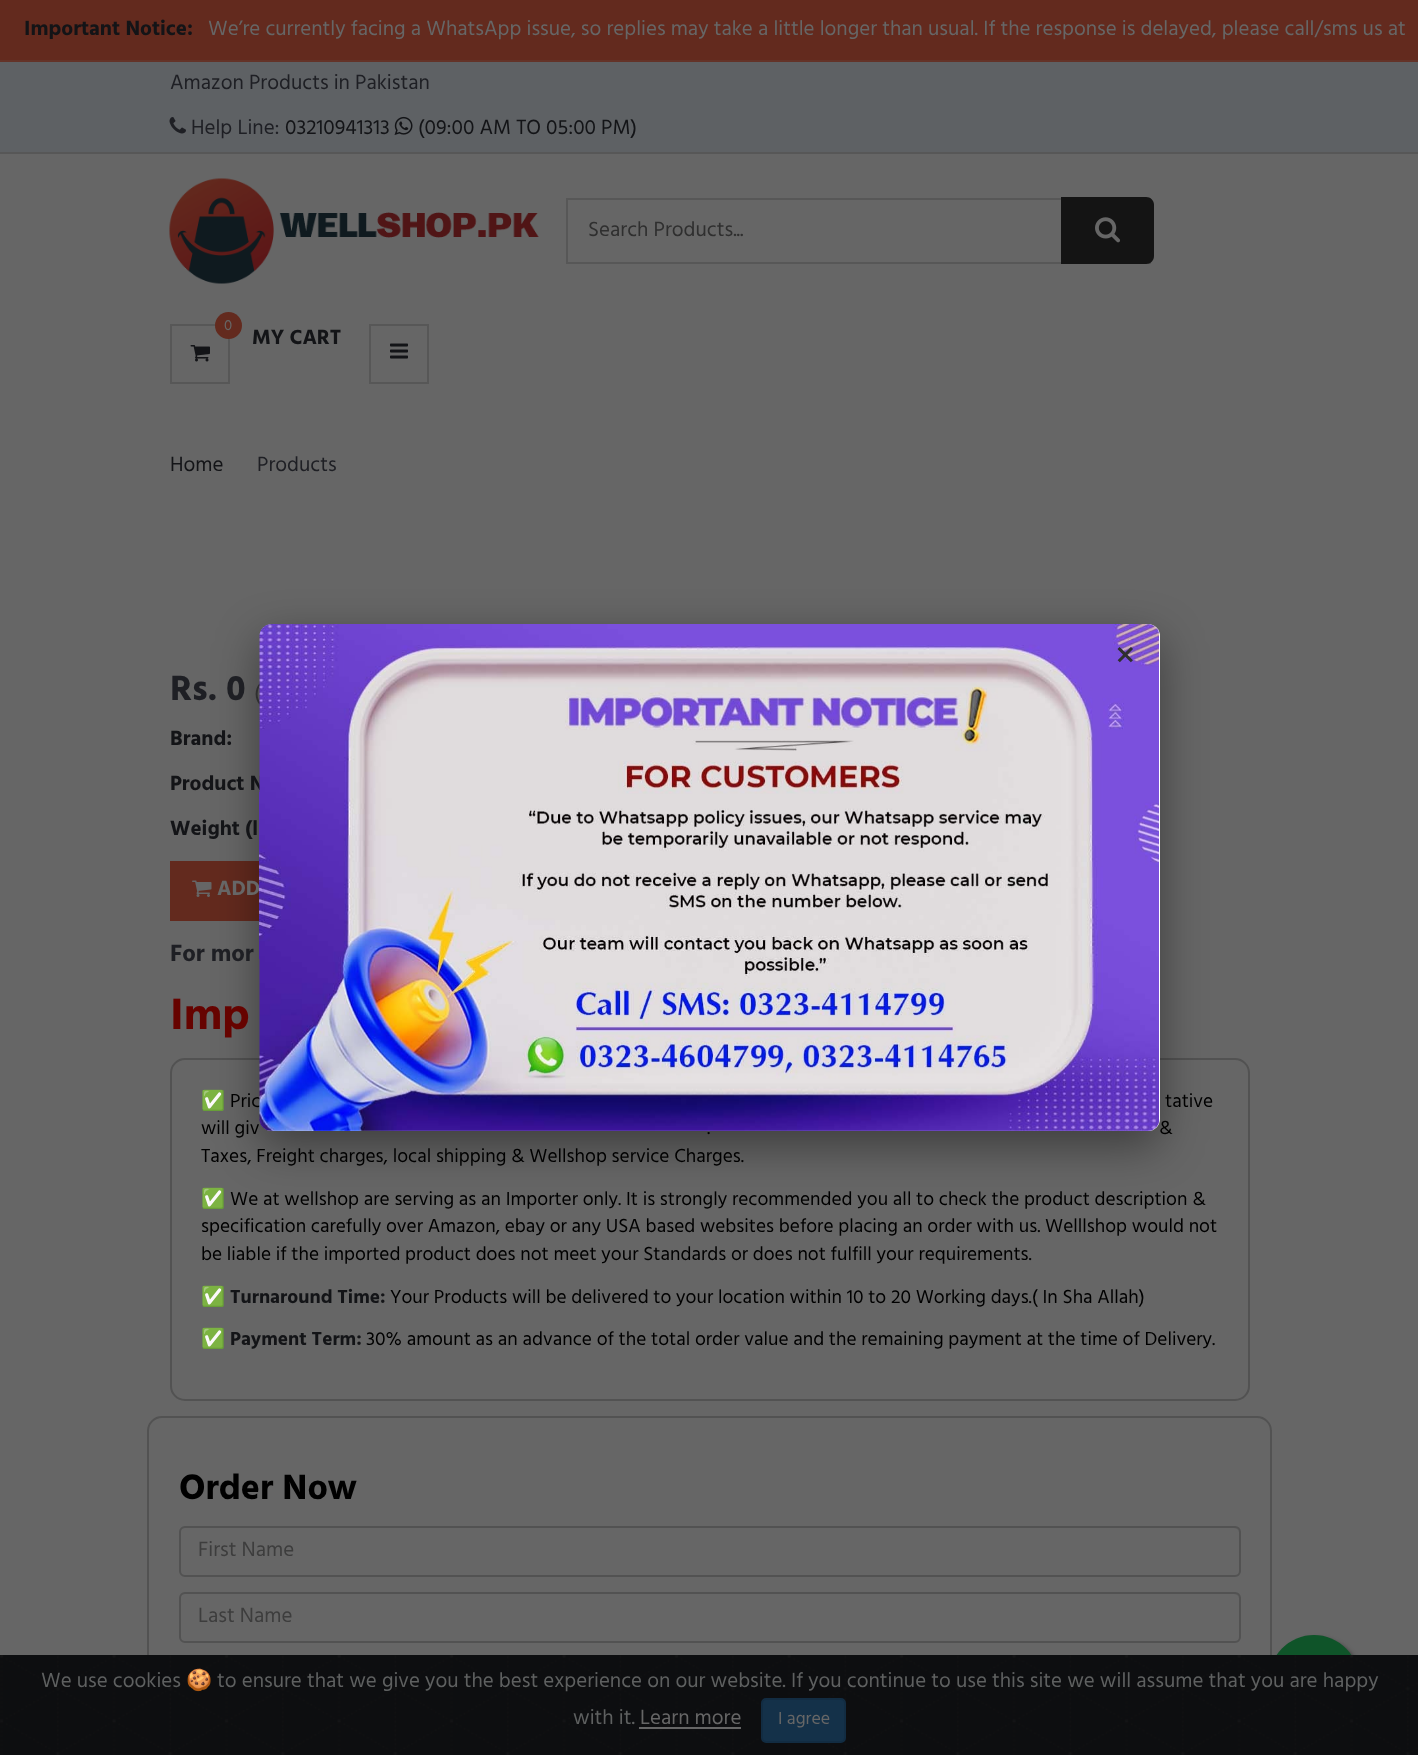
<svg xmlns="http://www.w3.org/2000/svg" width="1418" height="1755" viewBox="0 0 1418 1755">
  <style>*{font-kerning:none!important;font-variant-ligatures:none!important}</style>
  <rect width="100%" height="100%" fill="rgb(102,102,102)"/>
  <rect x="0" y="0" width="1418" height="60" fill="rgb(99,42,30)"/>
  <rect x="0" y="60" width="1418" height="2" fill="rgb(100,51,40)"/>
  <text x="24" y="35" font-family="Hind" font-size="21" font-weight="bold" fill="rgb(19,20,23)">Important Notice:</text>
  <text x="208" y="35" font-family="Hind" font-size="21" fill="rgb(102,102,102)">We’re currently facing a WhatsApp issue, so replies may take a little longer than usual. If the response is delayed, please call/sms us at</text>
  <rect x="0" y="62" width="1418" height="90" fill="rgb(94,97,100)"/>
  <rect x="0" y="152" width="1418" height="2" fill="rgb(87,87,87)"/>
  <text x="170" y="89" font-family="Hind" font-size="21" fill="rgb(30,31,36)">Amazon Products in Pakistan</text>
  <image x="169" y="117" width="17" height="17" href="pic1.png"/>
  <text x="191" y="134" font-family="Hind" font-size="21" fill="rgb(30,31,36)">Help Line:</text>
  <text x="285" y="134" font-family="Hind" font-size="21" fill="rgb(19,20,23)">03210941313</text>
  <image x="394" y="116" width="19" height="19" href="pic2.png"/>
  <text x="418" y="134" font-family="Hind" font-size="21" fill="rgb(19,20,23)">(09:00 AM TO 05:00 PM)</text>
  <image x="169" y="178" width="370" height="106" href="pic3.png"/>
  <rect x="567" y="199" width="583" height="64" fill="none" stroke="rgb(87,87,87)" stroke-width="2"/>
  <text x="588" y="236" font-family="Hind" font-size="21" fill="rgb(47,47,47)">Search Products...</text>
  <path d="M1061 197H1146C1150.5 197 1154 200.5 1154 205V256C1154 260.5 1150.5 264 1146 264H1061Z" fill="rgb(20,20,20)"/>
  <image x="1095" y="217" width="26" height="26" href="pic4.png"/>
  <rect x="171" y="325" width="58" height="58" fill="none" stroke="rgb(87,87,87)" stroke-width="2"/>
  <circle cx="228.5" cy="325.5" r="13.5" fill="rgb(99,42,30)"/>
  <text x="224" y="330" font-family="Hind" font-size="15" fill="rgb(102,102,102)">0</text>
  <image x="190" y="345" width="20" height="17" href="pic5.png"/>
  <text x="252" y="344" font-family="Hind" font-size="21" font-weight="bold" fill="rgb(19,20,23)">MY CART</text>
  <rect x="370" y="325" width="58" height="58" fill="none" stroke="rgb(87,87,87)" stroke-width="2"/>
  <image x="390" y="343" width="18" height="16" href="pic6.png"/>
  <text x="170" y="471" font-family="Hind" font-size="21" fill="rgb(19,20,23)">Home</text>
  <text x="257" y="471" font-family="Hind" font-size="21" fill="rgb(30,31,36)">Products</text>
  <rect x="170" y="861" width="89" height="60" fill="rgb(99,42,30)"/>
  <image x="192" y="880" width="20" height="17" href="pic8.png"/>
  <rect x="171" y="1059" width="1078" height="341" rx="14" fill="none" stroke="rgb(82,82,82)" stroke-width="2"/>
  <rect x="260" y="639" width="900" height="507" rx="12" fill="rgba(0,0,0,0.4)" filter="blur(22.5px)"/>
  <text x="254" y="700" font-family="Hind" font-size="23" fill="rgb(47,47,47)">(</text>
  <text x="170" y="790" font-family="Hind" font-size="21" font-weight="bold" fill="rgb(19,20,23)">Product N</text>
  <rect x="260" y="624" width="900" height="507" rx="12" fill="rgb(255,255,255)"/>
  <text x="217" y="895" font-family="Hind" font-size="21" font-weight="bold" fill="rgb(102,102,102)">ADD</text>
  <text x="230" y="1107" font-family="Hind" font-size="19.35" fill="rgb(0,0,0)">Pric</text>
  <image x="259" y="624" width="900" height="507" href="pic7.png"/>
  <text x="1115" y="669" font-family="Hind" font-size="42" fill="rgb(47,47,47)">×</text>
  <text x="170" y="700" font-family="Hind" font-size="36" font-weight="bold" fill="rgb(30,31,36)">Rs. 0</text>
  <g font-family="Hind" font-size="21" font-weight="bold" fill="rgb(19,20,23)">
    <text x="170" y="745">Brand:</text>
    <text x="170" y="835">Weight (l</text>
  </g>
  <text x="170" y="961" font-family="Hind" font-size="24" font-weight="bold" fill="rgb(30,31,36)">For mor</text>
  <text x="170" y="1029" font-family="Hind" font-size="45" font-weight="bold" fill="rgb(102,3,0)">Imp</text>
  <text x="201" y="1107" font-family="Noto Color Emoji" font-size="19.35" fill="rgb(0,0,0)">✅</text>
  <g font-family="Hind" font-size="19.35" fill="rgb(0,0,0)">
    <text x="1165" y="1107">tative</text>
    <text x="201" y="1134">will giv</text>
    <text x="707" y="1134">.</text>
    <text x="1159" y="1134">&amp;</text>
    <text x="201" y="1162">Taxes, Freight charges, local shipping &amp; Wellshop service Charges.</text>
  </g>
  <text x="201" y="1205" font-family="Noto Color Emoji" font-size="19.35" fill="rgb(0,0,0)">✅</text>
  <g font-family="Hind" font-size="19.35" fill="rgb(0,0,0)">
    <text x="230" y="1205">We at wellshop are serving as an Importer only. It is strongly recommended you all to check the product description &amp;</text>
    <text>
      <tspan x="201" y="1232">specification carefully over Amazon, ebay or any USA based websites before placing an order with us. Welllshop would not</tspan>
      <tspan x="201" y="1260">be liable if the imported product does not meet your Standards or does not fulfill your requirements.</tspan>
    </text>
  </g>
  <text x="201" y="1303" font-family="Noto Color Emoji" font-size="19.35" fill="rgb(0,0,0)">✅</text>
  <text x="230" y="1303" font-family="Hind" font-size="19.35" font-weight="bold" fill="rgb(19,20,23)">Turnaround Time:</text>
  <text x="390" y="1303" font-family="Hind" font-size="19.35" fill="rgb(0,0,0)">Your Products will be delivered to your location within 10 to 20 Working days.( In Sha Allah)</text>
  <text x="201" y="1345" font-family="Noto Color Emoji" font-size="19.35" fill="rgb(0,0,0)">✅</text>
  <text x="230" y="1345" font-family="Hind" font-size="19.35" font-weight="bold" fill="rgb(19,20,23)">Payment Term:</text>
  <text x="366" y="1345" font-family="Hind" font-size="19.35" fill="rgb(0,0,0)">30% amount as an advance of the total order value and the remaining payment at the time of Delivery.</text>
  <rect x="148" y="1417" width="1123" height="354" rx="14" fill="none" stroke="rgb(82,82,82)" stroke-width="2"/>
  <text x="179" y="1499" font-family="Hind" font-size="36" font-weight="bold" fill="rgb(0,0,0)">Order Now</text>
  <path d="M184 1528H1234C1237 1528 1239 1531 1239 1533C1239 1530 1237 1527 1234 1527H185C182 1527 180 1530 180 1533C180 1531 182 1528 184 1528Z" fill="rgb(94,94,94)"/>
  <rect x="180" y="1527" width="1060" height="49" rx="5" fill="none" stroke="rgb(82,82,82)" stroke-width="2"/>
  <text x="198" y="1556" font-family="Hind" font-size="21" fill="rgb(61,61,61)">First Name</text>
  <path d="M184 1594H1234C1237 1594 1239 1597 1239 1599C1239 1596 1237 1593 1234 1593H185C182 1593 180 1596 180 1599C180 1597 182 1594 184 1594Z" fill="rgb(94,94,94)"/>
  <rect x="180" y="1593" width="1060" height="49" rx="5" fill="none" stroke="rgb(82,82,82)" stroke-width="2"/>
  <text x="198" y="1622" font-family="Hind" font-size="21" fill="rgb(61,61,61)">Last Name</text>
  <rect x="1272" y="1638" width="90" height="90" rx="45" fill="rgb(61,61,61)" filter="blur(2px)"/>
  <circle cx="1314" cy="1680" r="45" fill="rgb(15,84,41)"/>
  <image x="0" y="1655" width="1418" height="100" href="pic9.png"/>
  <text x="41" y="1687" font-family="Hind" font-size="21" fill="rgb(94,96,96)">We use cookies</text>
  <text x="186" y="1687" font-family="Noto Color Emoji" font-size="21" fill="rgb(94,96,96)">🍪</text>
  <g font-family="Hind" font-size="21" fill="rgb(94,96,96)">
    <text x="217" y="1687">to ensure that we give you the best experience on our website. If you continue to use this site we will assume that you are happy</text>
    <text x="573" y="1724">with it.</text>
  </g>
  <text x="640" y="1724" font-family="Hind" font-size="21" fill="rgb(102,102,102)">Learn more</text>
  <rect x="639" y="1727" width="102" height="2" fill="rgb(102,102,102)"/>
  <rect x="762" y="1699" width="83" height="43" rx="4" fill="rgb(20,49,73)" stroke="rgb(18,44,66)" stroke-width="2"/>
  <text x="778" y="1724" font-family="Hind" font-size="18" fill="rgb(102,102,102)">I agree</text>
</svg>
